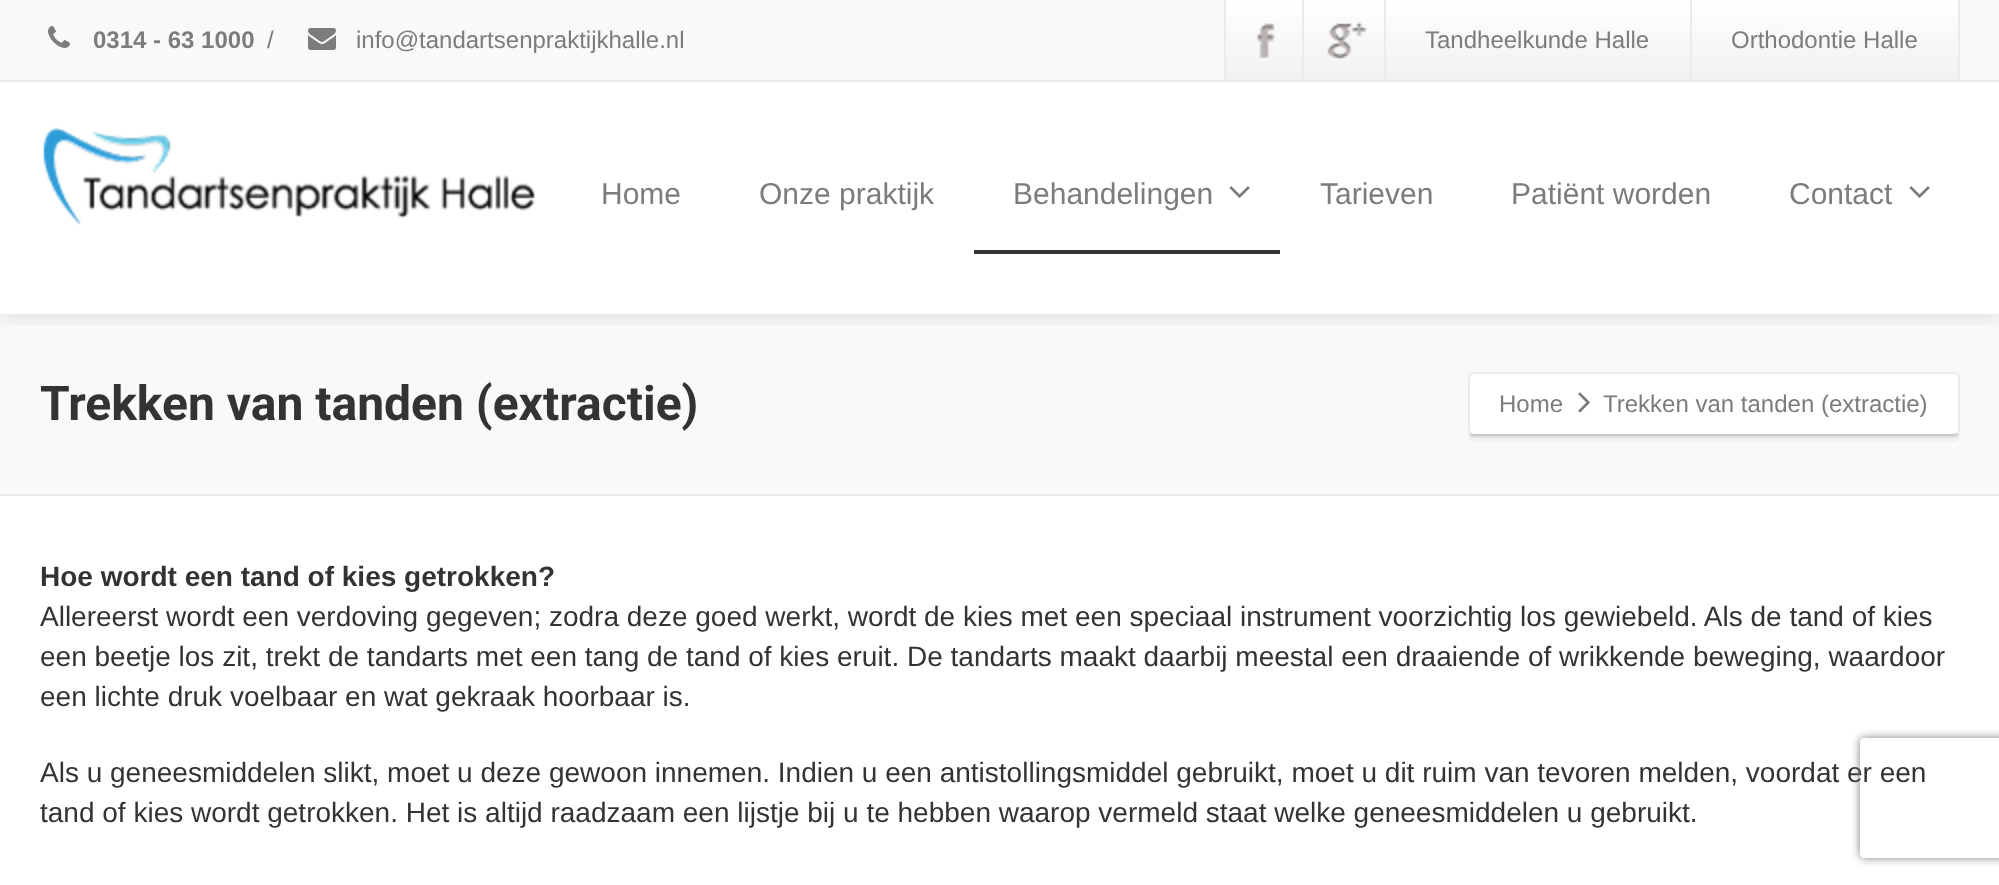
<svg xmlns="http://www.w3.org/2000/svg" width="1999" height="885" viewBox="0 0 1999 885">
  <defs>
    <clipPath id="clip1"><rect x="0" y="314" width="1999" height="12"/></clipPath>
    <linearGradient id="g1" gradientUnits="userSpaceOnUse" x1="1266" y1="0" x2="1266" y2="80"><stop offset="0" stop-color="rgb(255,255,255)"/><stop offset="1" stop-color="rgb(241,241,241)"/></linearGradient>
    <linearGradient id="g2" gradientUnits="userSpaceOnUse" x1="1344" y1="0" x2="1344" y2="80"><stop offset="0" stop-color="rgb(255,255,255)"/><stop offset="1" stop-color="rgb(241,241,241)"/></linearGradient>
    <linearGradient id="g3" gradientUnits="userSpaceOnUse" x1="1673" y1="0" x2="1673" y2="80"><stop offset="0" stop-color="rgb(255,255,255)"/><stop offset="1" stop-color="rgb(241,241,241)"/></linearGradient>
    <clipPath id="clip2"><path d="M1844 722H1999V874H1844ZM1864 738H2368C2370 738 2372 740 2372 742V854C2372 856 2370 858 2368 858H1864C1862 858 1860 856 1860 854V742C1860 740 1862 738 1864 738Z" clip-rule="evenodd"/></clipPath>
  </defs>
  <rect width="100%" height="100%" fill="rgb(255,255,255)"/>
  <rect x="0" y="314" width="1999" height="180" fill="rgb(249,249,249)"/>
  <g clip-path="url(#clip1)">
    <rect x="0" y="4" width="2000" height="314" fill="rgba(0,0,0,0.1)" filter="blur(10px)"/>
  </g>
  <rect x="0" y="0" width="1999" height="80" fill="rgb(249,249,249)"/>
  <rect x="0" y="80" width="1999" height="2" fill="rgb(235,235,235)"/>
  <image x="48" y="26" width="22" height="22" href="pic1.png"/>
  <text x="93" y="48" font-family="Liberation Sans" font-size="24" font-weight="bold" fill="rgb(124,124,124)">0314 - 63 1000</text>
  <text x="267" y="48" font-family="Liberation Sans" font-size="24" fill="rgb(124,124,124)">/</text>
  <image x="308" y="28" width="28" height="22" href="pic2.png"/>
  <text x="356" y="48" font-family="Liberation Sans" font-size="24" fill="rgb(124,124,124)">info@tandartsenpraktijkhalle.nl</text>
  <rect x="1226" y="0" width="76" height="80" fill="url(#g1)"/>
  <rect x="1224" y="0" width="2" height="80" fill="rgb(235,235,235)"/>
  <image x="1256" y="23" width="19" height="37" href="pic3.png"/>
  <rect x="1304" y="0" width="80" height="80" fill="url(#g2)"/>
  <rect x="1384" y="0" width="2" height="80" fill="rgb(235,235,235)"/>
  <rect x="1302" y="0" width="2" height="80" fill="rgb(235,235,235)"/>
  <image x="1327" y="21" width="40" height="39" href="pic4.png"/>
  <rect x="1386" y="0" width="572" height="80" fill="url(#g3)"/>
  <rect x="1690" y="0" width="2" height="80" fill="rgb(235,235,235)"/>
  <text x="1425" y="48" font-family="Liberation Sans" font-size="24" fill="rgb(124,124,124)">Tandheelkunde Halle</text>
  <rect x="1958" y="0" width="2" height="80" fill="rgb(235,235,235)"/>
  <text x="1731" y="48" font-family="Liberation Sans" font-size="24" fill="rgb(124,124,124)">Orthodontie Halle</text>
  <image x="43" y="127" width="492" height="98" href="pic5.png"/>
  <g font-family="Liberation Sans" font-size="30" fill="rgb(124,124,124)">
    <text x="601" y="204">Home</text>
    <text x="759" y="204">Onze praktijk</text>
  </g>
  <rect x="974" y="250" width="306" height="4" fill="rgb(51,51,51)"/>
  <text x="1013" y="204" font-family="Liberation Sans" font-size="30" fill="rgb(124,124,124)">Behandelingen</text>
  <image x="1229" y="186" width="21" height="12" href="pic6.png"/>
  <g font-family="Liberation Sans" font-size="30" fill="rgb(124,124,124)">
    <text x="1320" y="204">Tarieven</text>
    <text x="1511" y="204">Patiënt worden</text>
    <text x="1789" y="204">Contact</text>
  </g>
  <image x="1909" y="186" width="21" height="12" href="pic6.png"/>
  <rect x="0" y="494" width="1999" height="2" fill="rgb(235,235,235)"/>
  <text x="40" y="420" font-family="Roboto" font-size="48" font-weight="bold" fill="rgb(51,51,51)">Trekken van tanden (extractie)</text>
  <path d="M1468 430C1468 434 1469 438 1474 438H1954C1959 438 1960 434 1960 430C1960 433 1957 436 1954 436H1474C1471 436 1468 433 1468 430Z" fill="rgb(232,232,232)"/>
  <path d="M1468 430C1468 435 1467 442 1474 442H1954C1961 442 1960 435 1960 430C1960 433 1957 436 1954 436H1474C1471 436 1468 433 1468 430Z" fill="rgba(0,0,0,0.03)"/>
  <rect x="1468" y="372" width="492" height="64" rx="6" fill="rgb(255,255,255)"/>
  <path d="M1957.5 433.5C1956.5 434.5 1955.5 435 1954 435H1474C1472.5 435 1471.5 434.5 1470.5 433.5" fill="none" stroke="rgba(0,0,0,0.22)" stroke-width="2"/>
  <path d="M1470.5 433.5C1469.5 432.5 1469 431.5 1469 430V378C1469 376.5 1469.5 375.5 1470.5 374.5C1471.5 373.5 1472.5 373 1474 373H1954C1955.5 373 1956.5 373.5 1957.5 374.5C1958.5 375.5 1959 376.5 1959 378V430C1959 431.5 1958.5 432.5 1957.5 433.5" fill="none" stroke="rgb(235,235,235)" stroke-width="2"/>
  <text x="1499" y="412" font-family="Liberation Sans" font-size="24" fill="rgb(124,124,124)">Home</text>
  <image x="1578" y="392" width="12" height="21" href="pic7.png"/>
  <text x="1603" y="412" font-family="Liberation Sans" font-size="24" fill="rgb(124,124,124)">Trekken van tanden (extractie)</text>
  <text x="40" y="586" font-family="Liberation Sans" font-size="28" font-weight="bold" fill="rgb(51,51,51)">Hoe wordt een tand of kies getrokken?</text>
  <g font-family="Liberation Sans" font-size="28" fill="rgb(51,51,51)">
    <text>
      <tspan x="40" y="626">Allereerst wordt een verdoving gegeven; zodra deze goed werkt, wordt de kies met een speciaal instrument voorzichtig los gewiebeld. Als de tand of kies</tspan>
      <tspan x="40" y="666">een beetje los zit, trekt de tandarts met een tang de tand of kies eruit. De tandarts maakt daarbij meestal een draaiende of wrikkende beweging, waardoor</tspan>
      <tspan x="40" y="706">een lichte druk voelbaar en wat gekraak hoorbaar is.</tspan>
    </text>
    <text>
      <tspan x="40" y="782">Als u geneesmiddelen slikt, moet u deze gewoon innemen. Indien u een antistollingsmiddel gebruikt, moet u dit ruim van tevoren melden, voordat er een</tspan>
      <tspan x="40" y="822">tand of kies wordt getrokken. Het is altijd raadzaam een lijstje bij u te hebben waarop vermeld staat welke geneesmiddelen u gebruikt.</tspan>
    </text>
  </g>
  <g clip-path="url(#clip2)">
    <rect x="1860" y="738" width="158" height="120" rx="4" fill="rgb(128,128,128)" filter="blur(5px)"/>
  </g>
</svg>
